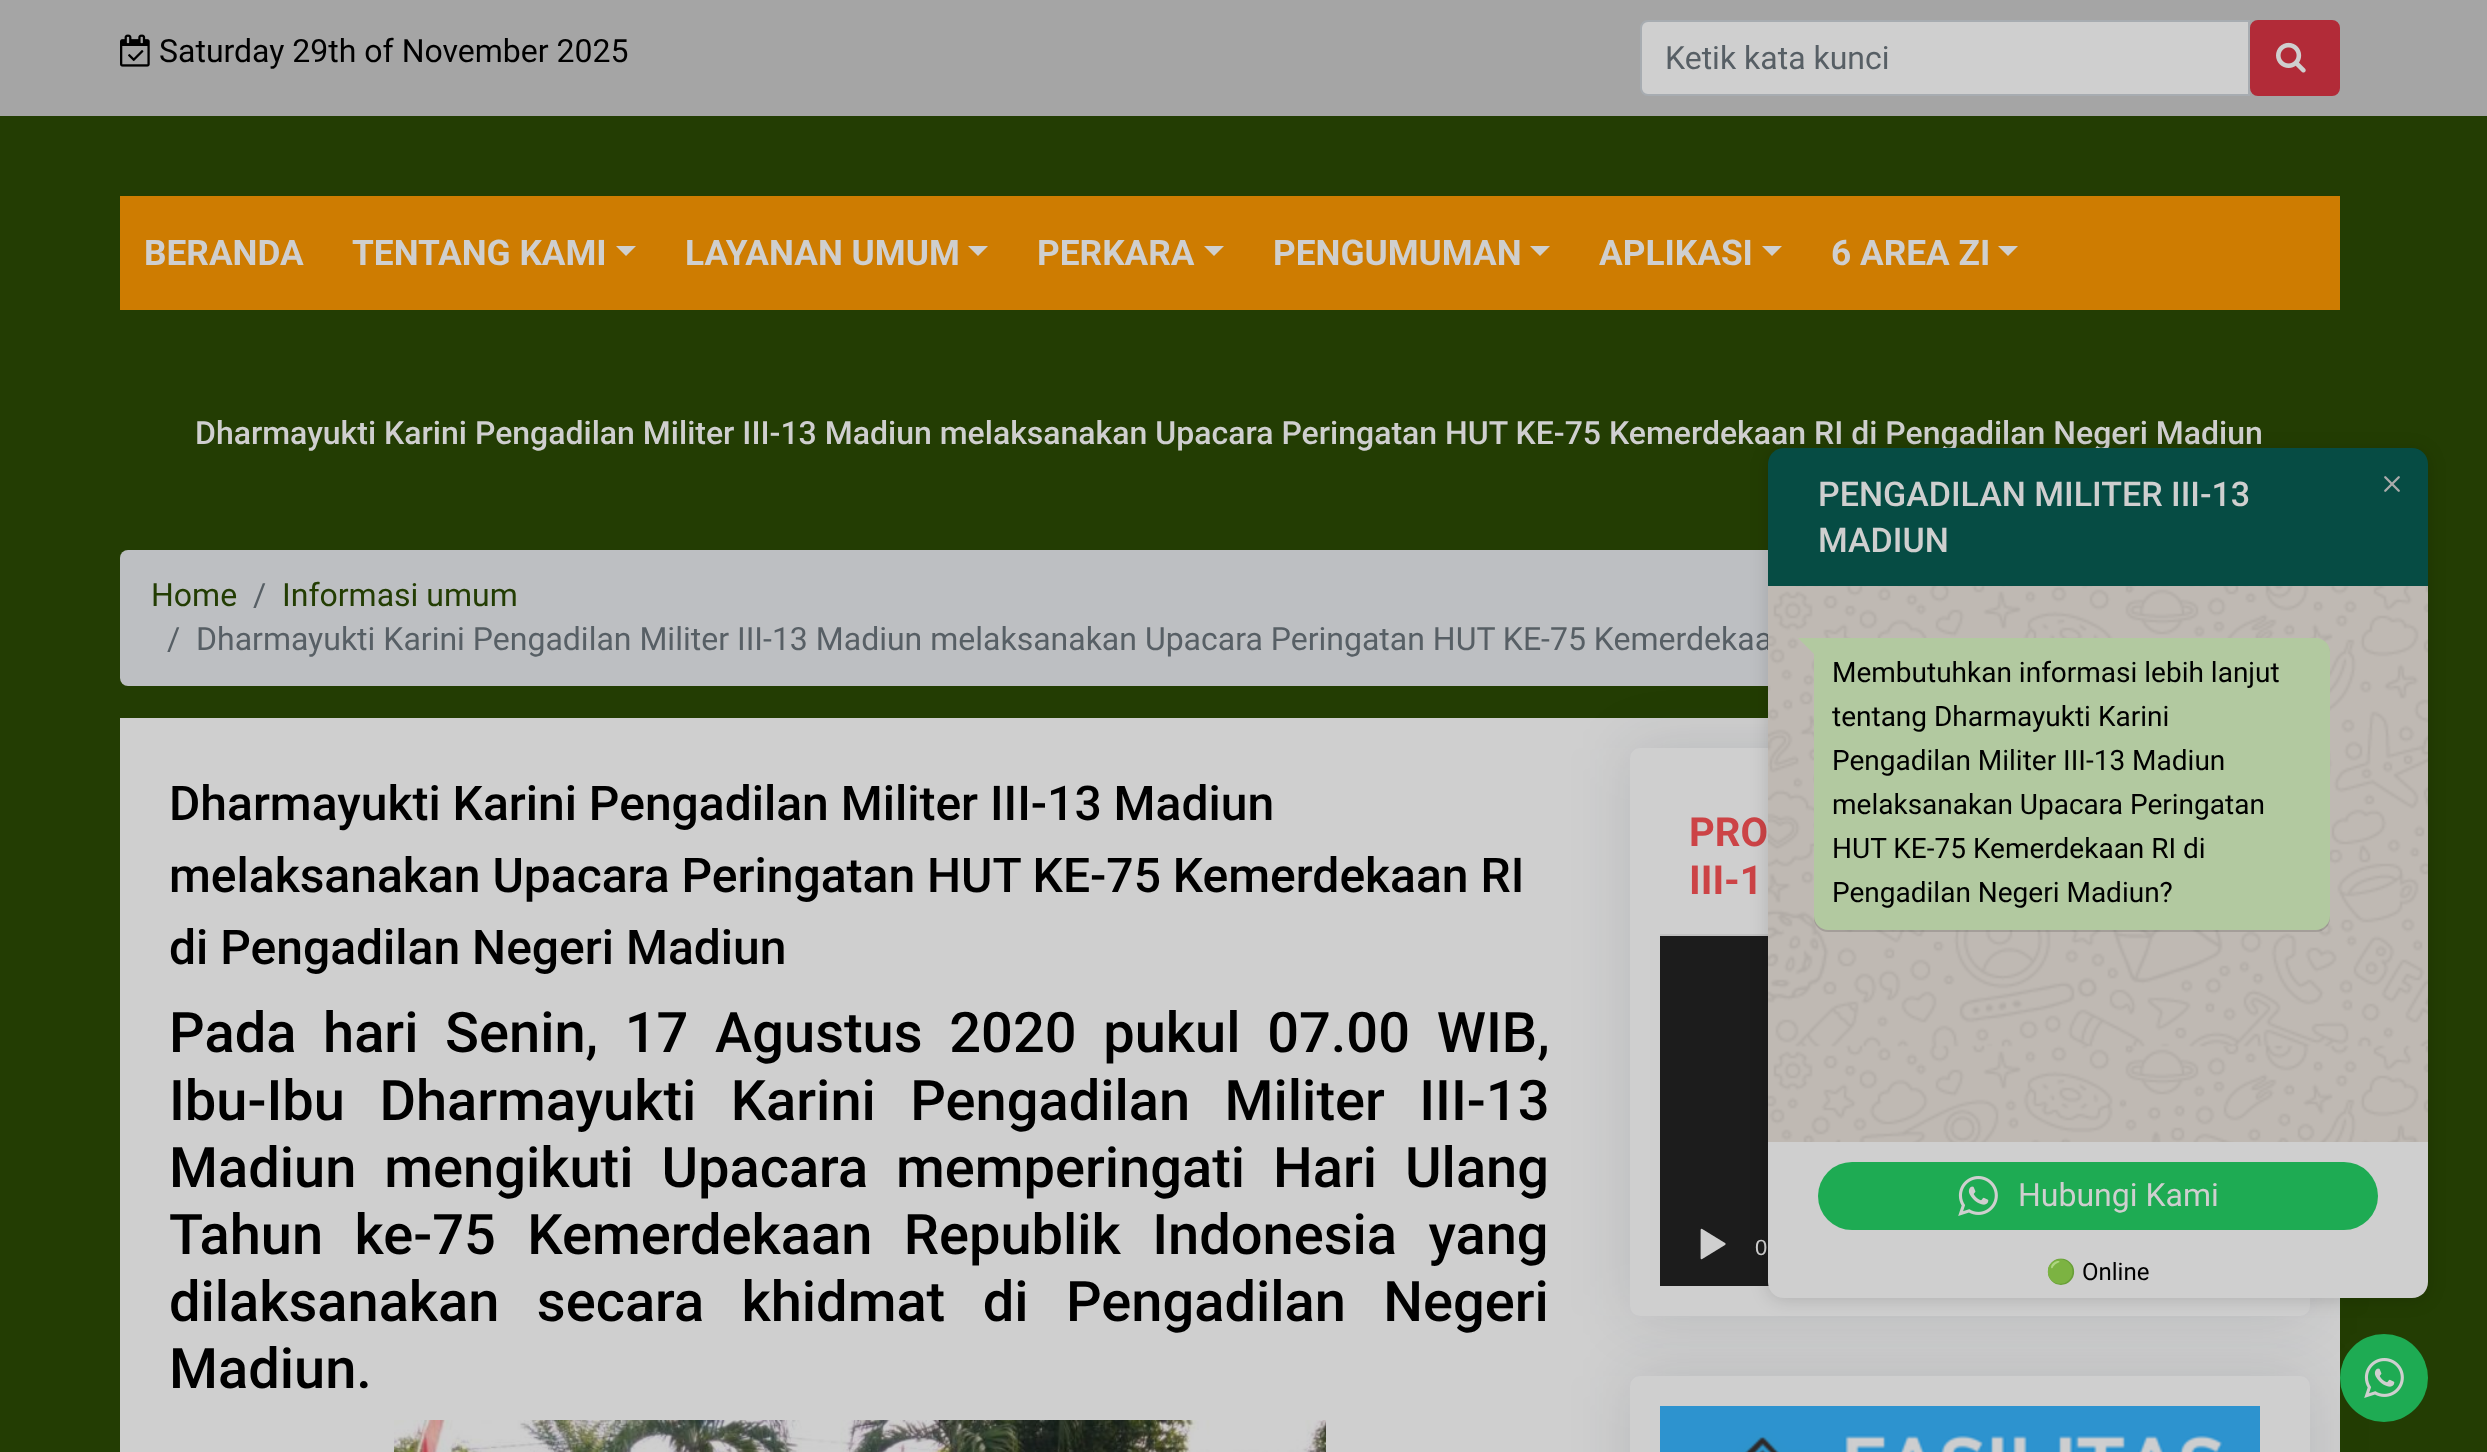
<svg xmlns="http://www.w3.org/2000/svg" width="2487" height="1452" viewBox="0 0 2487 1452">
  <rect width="100%" height="100%" fill="rgb(35,61,3)"/>
  <rect x="0" y="0" width="2487" height="116" fill="rgb(165,165,165)"/>
  <image x="120" y="34" width="30" height="33" href="pic1.png"/>
  <text x="159" y="62" font-family="Roboto" font-size="32" fill="rgb(0,0,0)">Saturday 29th of November 2025</text>
  <path d="M1648 21H2249V95H1648C1644 95 1641 92 1641 88V28C1641 24 1644 21 1648 21Z" fill="rgb(207,207,207)" stroke="rgb(167,172,177)" stroke-width="2"/>
  <text x="1665" y="69" font-family="Roboto" font-size="32" fill="rgb(87,95,101)">Ketik kata kunci</text>
  <rect x="2251" y="21" width="88" height="74" rx="7" fill="rgb(178,43,56)" stroke="rgb(178,43,56)" stroke-width="2"/>
  <image x="2276" y="42" width="30" height="31" href="pic2.png"/>
  <rect x="120" y="196" width="2220" height="114" fill="rgb(206,124,1)"/>
  <g font-family="Roboto" font-size="35.25" font-weight="bold" fill="rgb(207,207,207)">
    <text x="144" y="265">BERANDA</text>
    <text x="352" y="265">TENTANG KAMI</text>
  </g>
  <path d="M616 246H636L626 256Z" fill="rgb(207,207,207)"/>
  <text x="685" y="265" font-family="Roboto" font-size="35.25" font-weight="bold" fill="rgb(207,207,207)">LAYANAN UMUM</text>
  <path d="M968 246H988L978 256Z" fill="rgb(207,207,207)"/>
  <text x="1037" y="265" font-family="Roboto" font-size="35.25" font-weight="bold" fill="rgb(207,207,207)">PERKARA</text>
  <path d="M1204 246H1224L1214 256Z" fill="rgb(207,207,207)"/>
  <text x="1273" y="265" font-family="Roboto" font-size="35.25" font-weight="bold" fill="rgb(207,207,207)">PENGUMUMAN</text>
  <path d="M1530 246H1550L1540 256Z" fill="rgb(207,207,207)"/>
  <text x="1599" y="265" font-family="Roboto" font-size="35.25" font-weight="bold" fill="rgb(207,207,207)">APLIKASI</text>
  <path d="M1762 246H1782L1772 256Z" fill="rgb(207,207,207)"/>
  <text x="1831" y="265" font-family="Roboto" font-size="35.25" font-weight="bold" fill="rgb(207,207,207)">6 AREA ZI</text>
  <path d="M1998 246H2018L2008 256Z" fill="rgb(207,207,207)"/>
  <text x="195" y="444" font-family="Roboto" font-size="32" font-weight="500" fill="rgb(207,207,207)">Dharmayukti Karini Pengadilan Militer III-13 Madiun melaksanakan Upacara Peringatan HUT KE-75 Kemerdekaan RI di Pengadilan Negeri Madiun</text>
  <rect x="120" y="550" width="2220" height="136" rx="8" fill="rgb(189,191,194)"/>
  <text x="151" y="606" font-family="Roboto" font-size="32" fill="rgb(35,61,3)">Home</text>
  <text x="253" y="606" font-family="Roboto" font-size="32" fill="rgb(87,95,101)">/</text>
  <text x="282" y="606" font-family="Roboto" font-size="32" fill="rgb(35,61,3)">Informasi umum</text>
  <g font-family="Roboto" font-size="32" fill="rgb(87,95,101)">
    <text x="167" y="650">/</text>
    <text x="196" y="650">Dharmayukti Karini Pengadilan Militer III-13 Madiun melaksanakan Upacara Peringatan HUT KE-75 Kemerdekaa</text>
  </g>
  <rect x="120" y="718" width="2220" height="734" fill="rgb(207,207,207)"/>
  <g font-family="Roboto" font-size="48" font-weight="500" fill="rgb(0,0,0)">
    <text>
      <tspan x="169" y="820">Dharmayukti Karini Pengadilan Militer III-13 Madiun</tspan>
      <tspan x="169" y="892">melaksanakan Upacara Peringatan HUT KE-75 Kemerdekaan RI</tspan>
      <tspan x="169" y="964">di Pengadilan Negeri Madiun</tspan>
    </text>
  </g>
  <g font-family="Roboto" font-size="56" font-weight="500" fill="rgb(0,0,0)">
    <text>
      <tspan x="169" y="1052" word-spacing="12.75">Pada hari Senin, 17 Agustus 2020 pukul 07.00 WIB,</tspan>
      <tspan x="169" y="1120" word-spacing="20.5">Ibu-Ibu Dharmayukti Karini Pengadilan Militer III-13</tspan>
      <tspan x="169" y="1187" word-spacing="14">Madiun mengikuti Upacara memperingati Hari Ulang</tspan>
      <tspan x="169" y="1254" word-spacing="17.5">Tahun ke-75 Kemerdekaan Republik Indonesia yang</tspan>
      <tspan x="169" y="1321" word-spacing="23.5">dilaksanakan secara khidmat di Pengadilan Negeri</tspan>
      <tspan x="169" y="1388">Madiun.</tspan>
    </text>
  </g>
  <image x="394" y="1420" width="932" height="32" href="pic3.png"/>
  <rect x="1630" y="748" width="680" height="568" rx="10" fill="rgba(25,36,49,0.12)" filter="blur(30px)"/>
  <rect x="1630" y="748" width="680" height="568" rx="10" fill="rgb(207,207,207)"/>
  <rect x="1660" y="934" width="108" height="2" fill="rgb(193,193,193)"/>
  <g font-family="Roboto" font-size="40" font-weight="bold" fill="rgb(204,67,70)">
    <text>
      <tspan x="1689" y="846">PRO</tspan>
      <tspan x="1689" y="894">III-1</tspan>
    </text>
  </g>
  <rect x="1630" y="1376" width="680" height="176" rx="10" fill="rgba(25,36,49,0.12)" filter="blur(30px)"/>
  <rect x="1660" y="936" width="109" height="350" fill="rgb(28,28,28)"/>
  <image x="1700" y="1228" width="26" height="32" href="pic4.png"/>
  <text x="1755" y="1255" font-family="Liberation Sans" font-size="22" fill="rgb(207,207,207)">0</text>
  <rect x="1630" y="1376" width="680" height="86" rx="10" fill="rgb(207,207,207)"/>
  <image x="1660" y="1406" width="600" height="46" href="pic5.png"/>
  <rect x="1768" y="450" width="660" height="850" rx="16" fill="rgba(0,0,0,0.14)" filter="blur(9px)"/>
  <path d="M1784 448H2412C2421 448 2428 455 2428 464V588H1768V464C1768 455 1775 448 1784 448Z" fill="rgb(6,76,68)"/>
  <g font-family="Roboto" font-size="34" font-weight="500" fill="rgb(207,207,207)">
    <text>
      <tspan x="1818" y="506">PENGADILAN MILITER III-13</tspan>
      <tspan x="1818" y="552">MADIUN</tspan>
    </text>
  </g>
  <rect x="1768" y="586" width="660" height="556" fill="rgb(191,185,179)"/>
  <image x="1768" y="586" width="660" height="556" href="pic6.png"/>
  <rect x="1814" y="640" width="516" height="292" rx="14" fill="rgba(0,0,0,0.14)" filter="blur(0.5px)"/>
  <path d="M1814 638H2316C2323.5 638 2330 644.5 2330 652V916C2330 923.5 2323.5 930 2316 930H1828C1820.5 930 1814 923.5 1814 916Z" fill="rgb(178,201,160)"/>
  <path d="M1798 638H1815.5V655.5Z" fill="rgb(178,201,160)"/>
  <g font-family="Roboto" font-size="28" fill="rgb(0,0,0)">
    <text>
      <tspan x="1832" y="682">Membutuhkan informasi lebih lanjut</tspan>
      <tspan x="1832" y="726">tentang Dharmayukti Karini</tspan>
      <tspan x="1832" y="770">Pengadilan Militer III-13 Madiun</tspan>
      <tspan x="1832" y="814">melaksanakan Upacara Peringatan</tspan>
      <tspan x="1832" y="858">HUT KE-75 Kemerdekaan RI di</tspan>
      <tspan x="1832" y="902">Pengadilan Negeri Madiun?</tspan>
    </text>
  </g>
  <rect x="1768" y="1142" width="660" height="104" fill="rgb(207,207,207)"/>
  <rect x="1818" y="1162" width="560" height="68" rx="34" fill="rgb(30,171,83)"/>
  <image x="1958" y="1176" width="40" height="40" href="pic7.png"/>
  <text x="2018" y="1206" font-family="Roboto" font-size="32" fill="rgb(207,207,207)">Hubungi Kami</text>
  <path d="M1768 1246H2428V1282C2428 1291 2421 1298 2412 1298H1784C1775 1298 1768 1291 1768 1282Z" fill="rgb(207,207,207)"/>
  <text x="2046" y="1280" font-family="Noto Color Emoji" font-size="24" fill="rgb(0,0,0)">🟢</text>
  <text x="2082" y="1280" font-family="Roboto" font-size="24" fill="rgb(0,0,0)">Online</text>
  <image x="2384" y="476" width="16" height="16" href="pic8.png"/>
  <circle cx="2384" cy="1378" r="44" fill="rgb(30,171,83)"/>
  <image x="2364" y="1358" width="40" height="40" href="pic7.png"/>
</svg>
